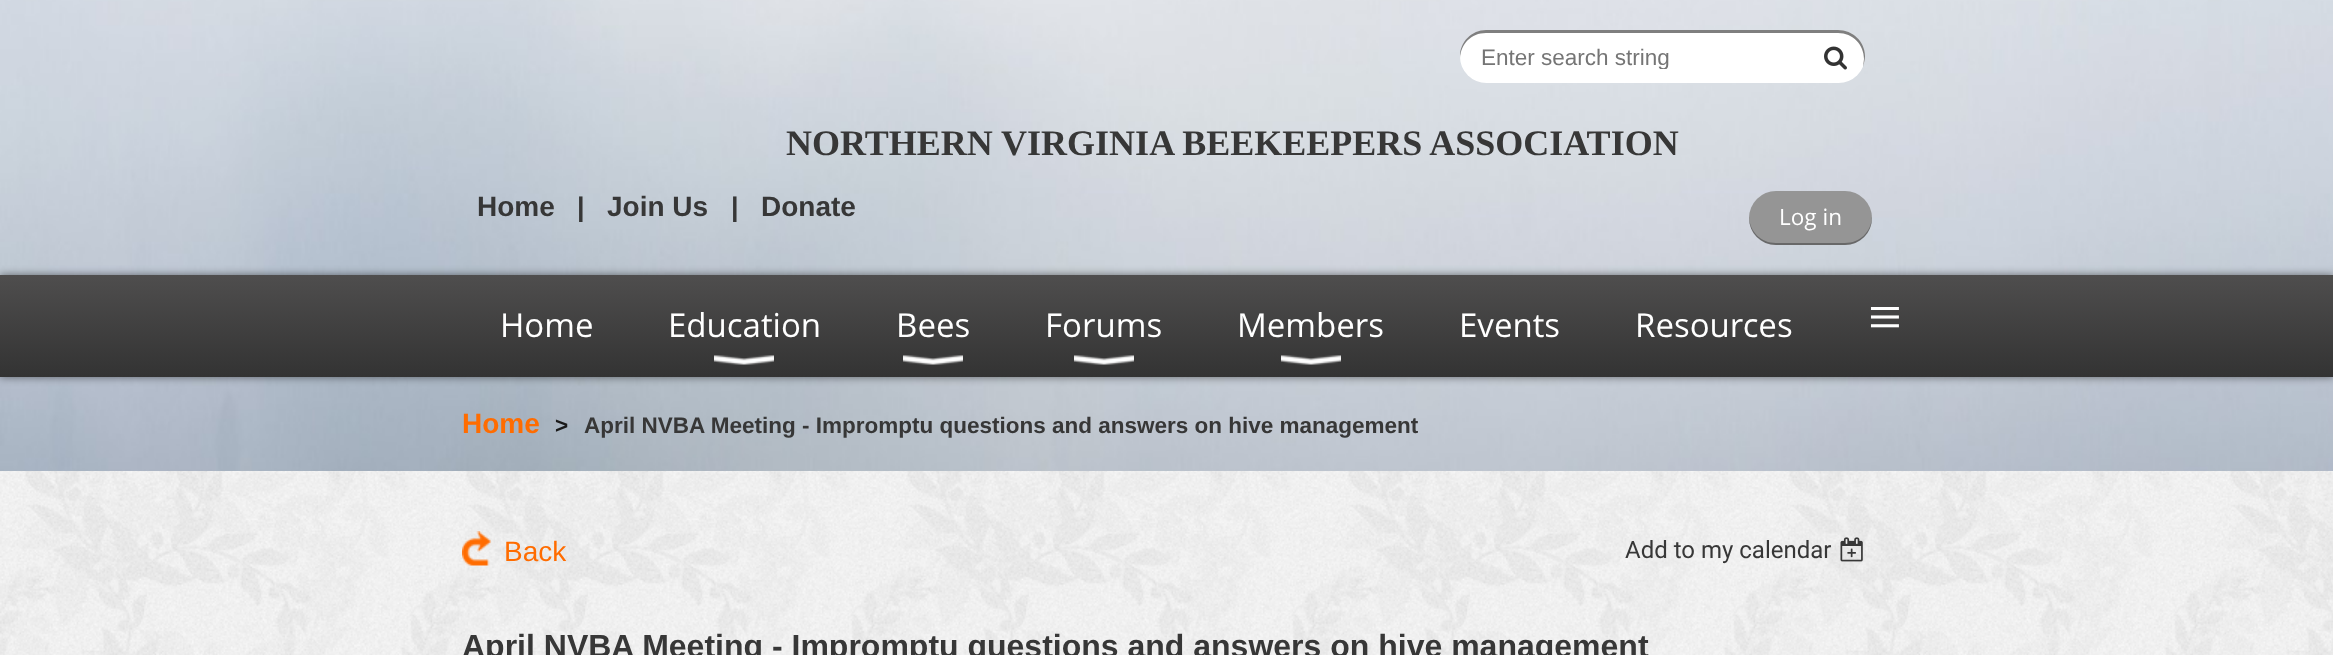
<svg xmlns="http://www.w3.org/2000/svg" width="2333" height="655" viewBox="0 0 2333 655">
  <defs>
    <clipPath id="clip1"><rect x="1481" y="44" width="331" height="25"/></clipPath>
    <linearGradient id="g1" gradientUnits="userSpaceOnUse" x1="1167" y1="274" x2="1167" y2="377"><stop offset="0" stop-color="rgb(79,78,78)"/><stop offset="1" stop-color="rgb(51,51,51)"/></linearGradient>
  </defs>
  <rect width="100%" height="100%" fill="rgb(255,255,255)"/>
  <image x="0" y="0" width="2333" height="471" href="pic1.png"/>
  <rect x="1460" y="30" width="405" height="53" rx="26.5" fill="rgb(255,255,255)"/>
  <path d="M1486 33H1838C1853 33 1864 45 1864 59L1863 67C1864 63 1865 60 1865 56C1865 42 1853 30 1838 30H1486C1472 30 1460 42 1460 56V58C1461 44 1471 33 1486 33Z" fill="rgba(0,0,0,0.5)"/>
  <g clip-path="url(#clip1)">
    <text x="1481" y="65" font-family="Liberation Sans" font-size="22.5" fill="rgb(117,117,117)">Enter search string</text>
  </g>
  <image x="1824" y="46" width="23" height="24" href="pic2.png"/>
  <text x="786" y="155" font-family="Liberation Serif" font-size="36" font-weight="bold" fill="rgb(55,55,55)">NORTHERN VIRGINIA BEEKEEPERS ASSOCIATION</text>
  <text x="477" y="216" font-family="Liberation Sans" font-size="28" font-weight="bold" fill="rgb(55,55,55)">Home</text>
  <text x="577" y="216" font-family="Liberation Sans" font-size="27" font-weight="bold" fill="rgb(55,55,55)">|</text>
  <text x="607" y="216" font-family="Liberation Sans" font-size="28" font-weight="bold" fill="rgb(55,55,55)">Join Us</text>
  <text x="731" y="216" font-family="Liberation Sans" font-size="27" font-weight="bold" fill="rgb(55,55,55)">|</text>
  <text x="761" y="216" font-family="Liberation Sans" font-size="28" font-weight="bold" fill="rgb(55,55,55)">Donate</text>
  <rect x="1749" y="191" width="123" height="54" rx="27" fill="rgb(149,149,149)"/>
  <path d="M1749 217V218C1749 233 1761 245 1776 245H1845C1860 245 1872 233 1872 218V217C1871 232 1860 243 1845 243H1776C1761 243 1750 232 1749 217Z" fill="rgba(0,0,0,0.3)"/>
  <text x="1779" y="225" font-family="Open Sans" font-size="22.5" fill="rgb(255,255,255)">Log in</text>
  <rect x="0" y="275" width="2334" height="102" fill="rgba(0,0,0,0.5)" filter="blur(4.5px)"/>
  <rect x="0" y="275" width="2333" height="102" fill="url(#g1)"/>
  <g font-family="Open Sans" font-size="33" fill="rgb(255,255,255)">
    <text x="500" y="337">Home</text>
    <text x="668" y="337">Education</text>
  </g>
  <image x="714" y="355" width="60" height="10" href="pic3.png"/>
  <text x="896" y="337" font-family="Open Sans" font-size="33" fill="rgb(255,255,255)">Bees</text>
  <image x="903" y="355" width="60" height="10" href="pic4.png"/>
  <text x="1045" y="337" font-family="Open Sans" font-size="33" fill="rgb(255,255,255)">Forums</text>
  <image x="1074" y="355" width="60" height="10" href="pic3.png"/>
  <text x="1237" y="337" font-family="Open Sans" font-size="33" fill="rgb(255,255,255)">Members</text>
  <image x="1281" y="355" width="60" height="10" href="pic4.png"/>
  <g font-family="Open Sans" font-size="33" fill="rgb(255,255,255)">
    <text x="1459" y="337">Events</text>
    <text x="1635" y="337">Resources</text>
  </g>
  <text x="1868" y="337" font-family="Liberation Serif" font-size="60" fill="rgb(255,255,255)">≡</text>
  <text x="462" y="433" font-family="Liberation Sans" font-size="28" font-weight="bold" fill="rgb(255,108,0)">Home</text>
  <text x="555" y="433" font-family="Liberation Sans" font-size="22.5" font-weight="bold" fill="rgb(26,26,26)">&gt;</text>
  <text x="584" y="433" font-family="Liberation Sans" font-size="22.5" font-weight="bold" fill="rgb(55,55,55)">April NVBA Meeting - Impromptu questions and answers on hive management</text>
  <image x="0" y="471" width="2333" height="184" href="pic5.png"/>
  <image x="462" y="531" width="29" height="35" href="pic6.png"/>
  <text x="504" y="561" font-family="Liberation Sans" font-size="28" fill="rgb(255,108,0)">Back</text>
  <text x="1625" y="558" font-family="Roboto" font-size="24" fill="rgb(55,55,55)">Add to my calendar</text>
  <image x="1840" y="537" width="23" height="25" href="pic7.png"/>
  <text x="462" y="657" font-family="Liberation Sans" font-size="32" font-weight="bold" fill="rgb(55,55,55)">April NVBA Meeting - Impromptu questions and answers on hive management</text>
</svg>
